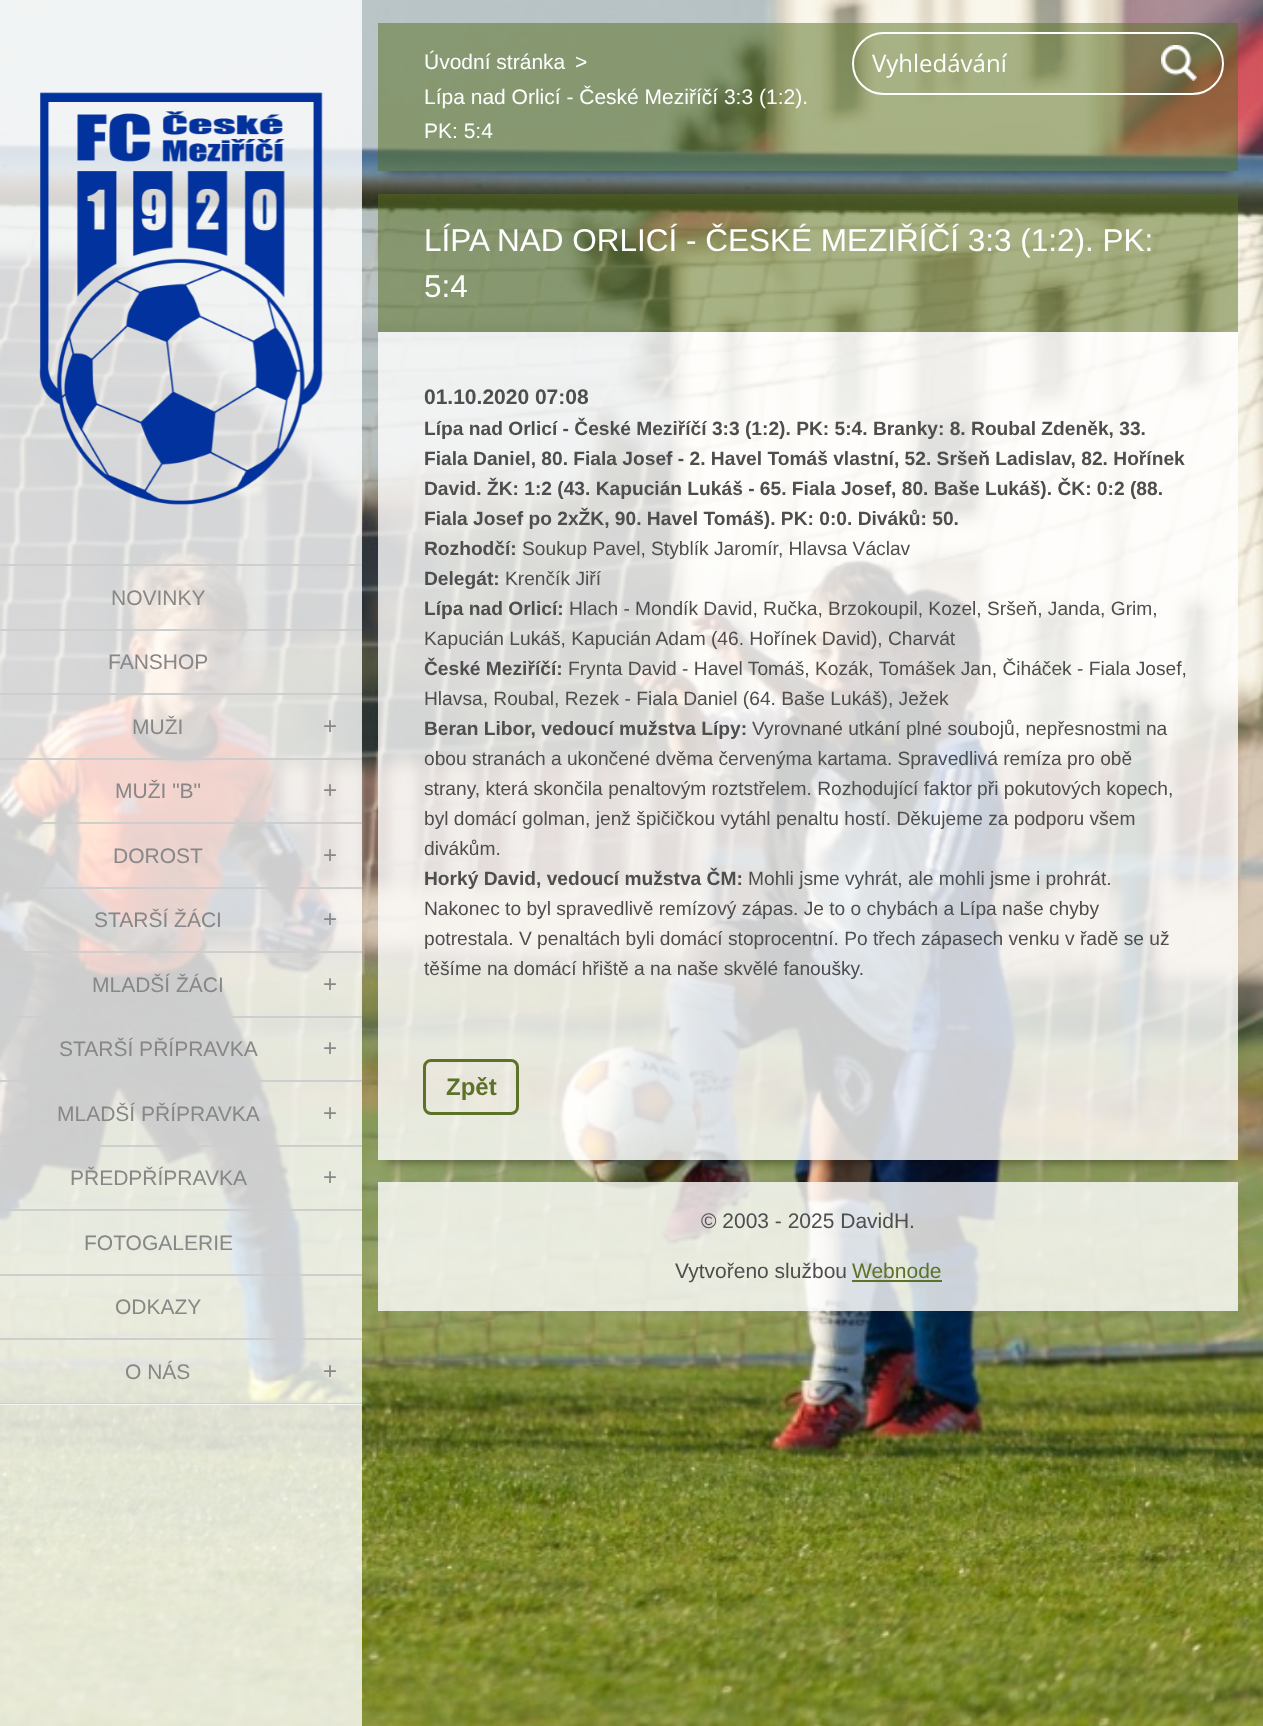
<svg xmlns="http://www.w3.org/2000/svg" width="1263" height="1726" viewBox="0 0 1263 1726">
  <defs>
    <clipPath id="clip1"><rect x="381" y="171" width="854" height="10"/></clipPath>
    <clipPath id="clip2"><path d="M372 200H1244V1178H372ZM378 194H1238V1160H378Z" clip-rule="evenodd"/></clipPath>
  </defs>
  <rect width="100%" height="100%" fill="rgb(255,255,255)"/>
  <image x="0" y="0" width="1263" height="1726" href="pic1.png"/>
  <g clip-path="url(#clip1)">
    <rect x="387" y="44" width="842" height="130" fill="rgba(0,0,0,0.35)" filter="blur(4.5px)"/>
  </g>
  <rect x="378" y="23" width="860" height="148" fill="rgba(86,110,30,0.5)"/>
  <g font-family="Liberation Sans" font-size="21" fill="rgb(255,255,255)">
    <text x="424" y="69">Úvodní stránka</text>
    <text x="575" y="69">&gt;</text>
    <text>
      <tspan x="424" y="104">Lípa nad Orlicí - České Meziříčí 3:3 (1:2).</tspan>
      <tspan x="424" y="138">PK: 5:4</tspan>
    </text>
  </g>
  <g clip-path="url(#clip2)">
    <rect x="387" y="215" width="842" height="948" fill="rgba(0,0,0,0.35)" filter="blur(4.5px)"/>
  </g>
  <rect x="378" y="194" width="860" height="138" fill="rgba(86,110,30,0.5)"/>
  <g font-family="Liberation Sans" font-size="31.5" fill="rgb(255,255,255)">
    <text>
      <tspan x="424" y="251">LÍPA NAD ORLICÍ - ČESKÉ MEZIŘÍČÍ 3:3 (1:2). PK:</tspan>
      <tspan x="424" y="297">5:4</tspan>
    </text>
  </g>
  <rect x="378" y="332" width="860" height="727" fill="rgba(255,255,255,0.8)"/>
  <text x="424" y="404" font-family="Liberation Sans" font-size="21" font-weight="bold" fill="rgb(78,78,78)">01.10.2020 07:08</text>
  <g font-family="Liberation Sans" font-size="19.2" font-weight="bold" fill="rgb(78,78,78)">
    <text>
      <tspan x="424" y="435">Lípa nad Orlicí - České Meziříčí 3:3 (1:2). PK: 5:4. Branky: 8. Roubal Zdeněk, 33.</tspan>
      <tspan x="424" y="465">Fiala Daniel, 80. Fiala Josef - 2. Havel Tomáš vlastní, 52. Sršeň Ladislav, 82. Hořínek</tspan>
      <tspan x="424" y="495">David. ŽK: 1:2 (43. Kapucián Lukáš - 65. Fiala Josef, 80. Baše Lukáš). ČK: 0:2 (88.</tspan>
      <tspan x="424" y="525">Fiala Josef po 2xŽK, 90. Havel Tomáš). PK: 0:0. Diváků: 50.</tspan>
      <tspan x="424" y="555">Rozhodčí:</tspan>
    </text>
  </g>
  <text x="522" y="555" font-family="Liberation Sans" font-size="19.2" fill="rgb(78,78,78)">Soukup Pavel, Styblík Jaromír, Hlavsa Václav</text>
  <text x="424" y="585" font-family="Liberation Sans" font-size="19.2" font-weight="bold" fill="rgb(78,78,78)">Delegát:</text>
  <text x="505" y="585" font-family="Liberation Sans" font-size="19.2" fill="rgb(78,78,78)">Krenčík Jiří</text>
  <text x="424" y="615" font-family="Liberation Sans" font-size="19.2" font-weight="bold" fill="rgb(78,78,78)">Lípa nad Orlicí:</text>
  <g font-family="Liberation Sans" font-size="19.2" fill="rgb(78,78,78)">
    <text x="569" y="615">Hlach - Mondík David, Ručka, Brzokoupil, Kozel, Sršeň, Janda, Grim,</text>
    <text x="424" y="645">Kapucián Lukáš, Kapucián Adam (46. Hořínek David), Charvát</text>
  </g>
  <text x="424" y="675" font-family="Liberation Sans" font-size="19.2" font-weight="bold" fill="rgb(78,78,78)">České Meziříčí:</text>
  <g font-family="Liberation Sans" font-size="19.2" fill="rgb(78,78,78)">
    <text x="568" y="675">Frynta David - Havel Tomáš, Kozák, Tomášek Jan, Čiháček - Fiala Josef,</text>
    <text x="424" y="705">Hlavsa, Roubal, Rezek - Fiala Daniel (64. Baše Lukáš), Ježek</text>
  </g>
  <text x="424" y="735" font-family="Liberation Sans" font-size="19.2" font-weight="bold" fill="rgb(78,78,78)">Beran Libor, vedoucí mužstva Lípy:</text>
  <g font-family="Liberation Sans" font-size="19.2" fill="rgb(78,78,78)">
    <text x="752" y="735">Vyrovnané utkání plné soubojů, nepřesnostmi na</text>
    <text>
      <tspan x="424" y="765">obou stranách a ukončené dvěma červenýma kartama. Spravedlivá remíza pro obě</tspan>
      <tspan x="424" y="795">strany, která skončila penaltovým roztstřelem. Rozhodující faktor při pokutových kopech,</tspan>
      <tspan x="424" y="825">byl domácí golman, jenž špičičkou vytáhl penaltu hostí. Děkujeme za podporu všem</tspan>
      <tspan x="424" y="855">divákům.</tspan>
    </text>
  </g>
  <text x="424" y="885" font-family="Liberation Sans" font-size="19.2" font-weight="bold" fill="rgb(78,78,78)">Horký David, vedoucí mužstva ČM:</text>
  <g font-family="Liberation Sans" font-size="19.2" fill="rgb(78,78,78)">
    <text x="748" y="885">Mohli jsme vyhrát, ale mohli jsme i prohrát.</text>
    <text>
      <tspan x="424" y="915">Nakonec to byl spravedlivě remízový zápas. Je to o chybách a Lípa naše chyby</tspan>
      <tspan x="424" y="945">potrestala. V penaltách byli domácí stoprocentní. Po třech zápasech venku v řadě se už</tspan>
      <tspan x="424" y="975">těšíme na domácí hřiště a na naše skvělé fanoušky.</tspan>
    </text>
  </g>
  <rect x="378" y="1059" width="860" height="101" fill="rgba(255,255,255,0.8)"/>
  <rect x="424.5" y="1060.5" width="93" height="53" rx="6.5" fill="none" stroke="rgb(92,114,40)" stroke-width="3"/>
  <text x="446" y="1095" font-family="Liberation Sans" font-size="24" font-weight="bold" fill="rgb(92,114,40)">Zpět</text>
  <rect x="378" y="1182" width="860" height="129" fill="rgba(255,255,255,0.8)"/>
  <g font-family="Liberation Sans" font-size="21" fill="rgb(78,78,78)">
    <text x="701" y="1228">© 2003 - 2025 DavidH.</text>
    <text x="675" y="1278">Vytvořeno službou</text>
  </g>
  <text x="852" y="1278" font-family="Liberation Sans" font-size="21" fill="rgb(92,114,40)">Webnode</text>
  <rect x="852" y="1280" width="90" height="2" fill="rgb(92,114,40)"/>
  <rect x="853" y="33" width="370" height="61" rx="30.5" fill="none" stroke="rgb(255,255,255)" stroke-width="2"/>
  <text x="872" y="72" font-family="Open Sans" font-size="24" fill="rgb(255,255,255)">Vyhledávání</text>
  <image x="1161" y="45" width="36" height="36" href="pic2.png"/>
  <rect x="0" y="0" width="362" height="527" fill="rgba(255,255,255,0.8)"/>
  <image x="39" y="92" width="284" height="413" href="pic3.png"/>
  <rect x="0" y="527" width="362" height="37" fill="rgba(255,255,255,0.8)"/>
  <rect x="0" y="566" width="362" height="837" fill="rgba(255,255,255,0.8)"/>
  <rect x="0" y="564" width="362" height="2" fill="rgb(206,206,206)"/>
  <rect x="0" y="629" width="362" height="2" fill="rgb(206,206,206)"/>
  <text x="111" y="605" font-family="Liberation Sans" font-size="21" fill="rgb(135,135,135)">NOVINKY</text>
  <rect x="0" y="693" width="362" height="2" fill="rgb(206,206,206)"/>
  <text x="108" y="669" font-family="Liberation Sans" font-size="21" fill="rgb(135,135,135)">FANSHOP</text>
  <rect x="0" y="758" width="362" height="2" fill="rgb(206,206,206)"/>
  <text x="132" y="734" font-family="Liberation Sans" font-size="21" fill="rgb(135,135,135)">MUŽI</text>
  <text x="323" y="734" font-family="Liberation Sans" font-size="24" fill="rgb(135,135,135)">+</text>
  <rect x="0" y="822" width="362" height="2" fill="rgb(206,206,206)"/>
  <text x="115" y="798" font-family="Liberation Sans" font-size="21" fill="rgb(135,135,135)">MUŽI "B"</text>
  <text x="323" y="798" font-family="Liberation Sans" font-size="24" fill="rgb(135,135,135)">+</text>
  <rect x="33" y="887" width="329" height="2" fill="rgb(206,206,206)"/>
  <text x="113" y="863" font-family="Liberation Sans" font-size="21" fill="rgb(135,135,135)">DOROST</text>
  <text x="323" y="863" font-family="Liberation Sans" font-size="24" fill="rgb(135,135,135)">+</text>
  <rect x="22" y="951" width="340" height="2" fill="rgb(206,206,206)"/>
  <text x="94" y="927" font-family="Liberation Sans" font-size="21" fill="rgb(135,135,135)">STARŠÍ ŽÁCI</text>
  <text x="323" y="927" font-family="Liberation Sans" font-size="24" fill="rgb(135,135,135)">+</text>
  <rect x="12" y="1016" width="350" height="2" fill="rgb(206,206,206)"/>
  <text x="92" y="992" font-family="Liberation Sans" font-size="21" fill="rgb(135,135,135)">MLADŠÍ ŽÁCI</text>
  <text x="323" y="992" font-family="Liberation Sans" font-size="24" fill="rgb(135,135,135)">+</text>
  <rect x="0" y="1080" width="362" height="2" fill="rgb(206,206,206)"/>
  <text x="59" y="1056" font-family="Liberation Sans" font-size="21" fill="rgb(135,135,135)">STARŠÍ PŘÍPRAVKA</text>
  <text x="323" y="1056" font-family="Liberation Sans" font-size="24" fill="rgb(135,135,135)">+</text>
  <rect x="0" y="1145" width="362" height="2" fill="rgb(206,206,206)"/>
  <text x="57" y="1121" font-family="Liberation Sans" font-size="21" fill="rgb(135,135,135)">MLADŠÍ PŘÍPRAVKA</text>
  <text x="323" y="1121" font-family="Liberation Sans" font-size="24" fill="rgb(135,135,135)">+</text>
  <rect x="0" y="1209" width="362" height="2" fill="rgb(206,206,206)"/>
  <text x="70" y="1185" font-family="Liberation Sans" font-size="21" fill="rgb(135,135,135)">PŘEDPŘÍPRAVKA</text>
  <text x="323" y="1185" font-family="Liberation Sans" font-size="24" fill="rgb(135,135,135)">+</text>
  <rect x="0" y="1274" width="362" height="2" fill="rgb(206,206,206)"/>
  <text x="84" y="1250" font-family="Liberation Sans" font-size="21" fill="rgb(135,135,135)">FOTOGALERIE</text>
  <rect x="0" y="1338" width="362" height="2" fill="rgb(206,206,206)"/>
  <text x="115" y="1314" font-family="Liberation Sans" font-size="21" fill="rgb(135,135,135)">ODKAZY</text>
  <rect x="0" y="1403" width="362" height="2" fill="rgb(206,206,206)"/>
  <text x="125" y="1379" font-family="Liberation Sans" font-size="21" fill="rgb(135,135,135)">O NÁS</text>
  <text x="323" y="1379" font-family="Liberation Sans" font-size="24" fill="rgb(135,135,135)">+</text>
  <rect x="0" y="1404" width="362" height="322" fill="rgba(255,255,255,0.8)"/>
</svg>
